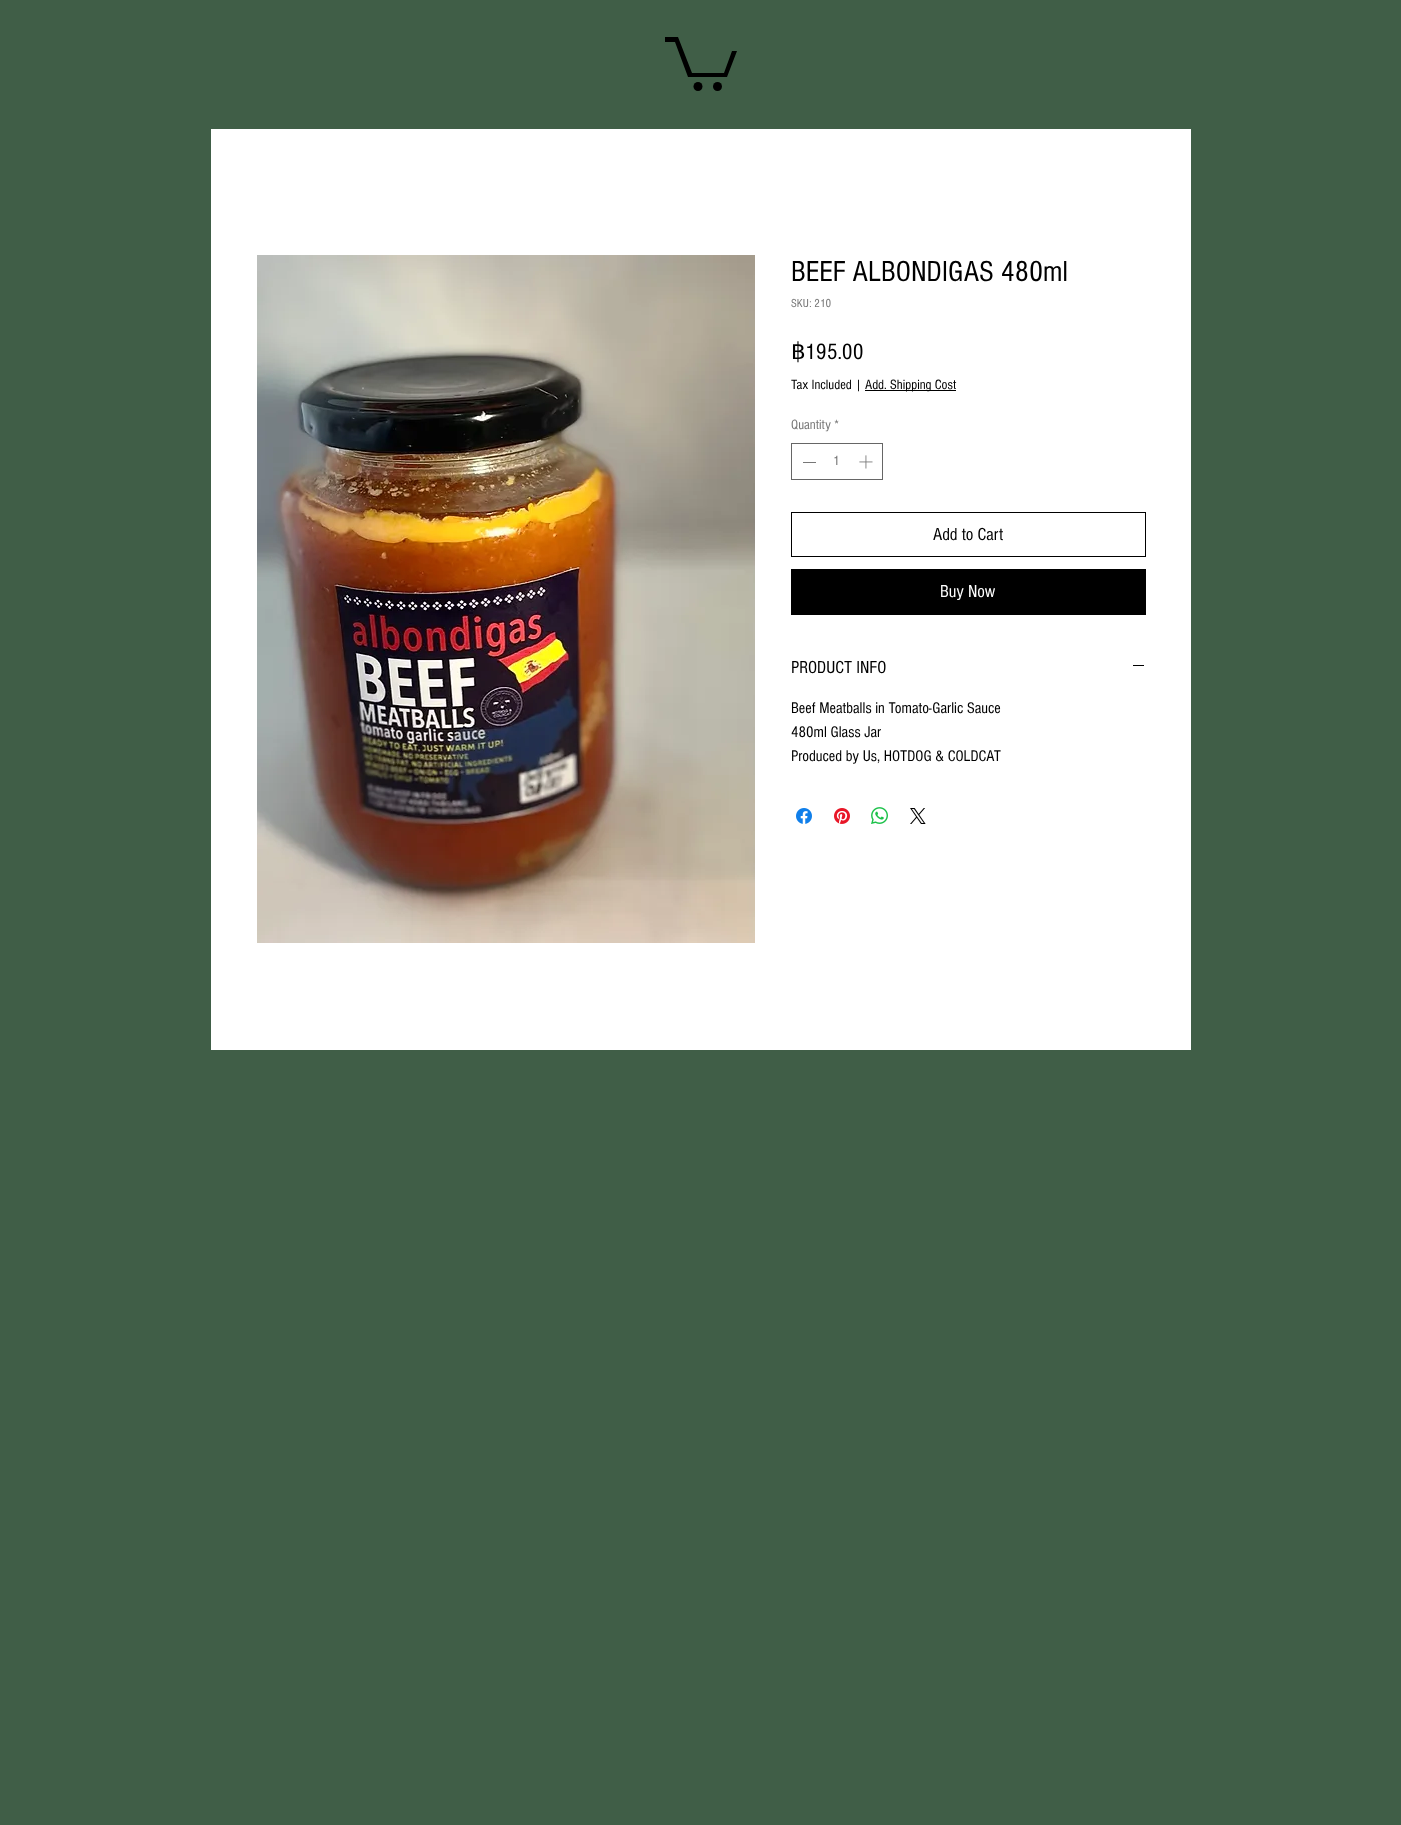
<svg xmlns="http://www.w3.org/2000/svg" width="1401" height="1825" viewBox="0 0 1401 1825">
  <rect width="100%" height="100%" fill="rgb(64,94,71)"/>
  <path d="M737 51L727 77H688L675 42H665V37H678L692 73H724L732 51" fill="rgb(0,0,0)"/>
  <circle cx="717.5" cy="86.5" r="4.5" fill="rgb(0,0,0)"/>
  <circle cx="698" cy="86.5" r="4.5" fill="rgb(0,0,0)"/>
  <rect x="211" y="129" width="980" height="921" fill="rgb(255,255,255)"/>
  <image x="257" y="255" width="498" height="688" href="pic1.png"/>
  <text x="791" y="281" font-family="'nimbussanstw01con'" font-size="30" fill="rgb(0,0,0)">BEEF ALBONDIGAS 480ml</text>
  <text x="791" y="307" font-family="'nimbussanstw01con'" font-size="12" fill="rgb(119,119,119)">SKU: 210</text>
  <text x="791" y="359" font-family="DejaVu Sans" font-size="23" fill="rgb(0,0,0)">฿</text>
  <text x="805" y="359" font-family="'nimbussanstw01con'" font-size="23" fill="rgb(0,0,0)">195.00</text>
  <text x="791" y="389" font-family="'nimbussanstw01con'" font-size="14" fill="rgb(0,0,0)">Tax Included |</text>
  <rect x="865" y="390" width="91" height="1" fill="rgb(0,0,0)"/>
  <text x="865" y="389" font-family="'nimbussanstw01con'" font-size="14" fill="rgb(0,0,0)">Add. Shipping Cost</text>
  <g font-family="'nimbussanstw01con'" font-size="14" fill="rgb(119,119,119)">
    <text x="791" y="429">Quantity</text>
    <text x="834" y="429">*</text>
  </g>
  <rect x="791.5" y="443.5" width="91" height="36" fill="none" stroke="rgb(102,102,102)"/>
  <rect x="803" y="462" width="13" height="1" fill="rgb(119,119,119)"/>
  <text x="833" y="465" font-family="'nimbussanstw01con'" font-size="14" fill="rgb(119,119,119)">1</text>
  <image x="859" y="455" width="14" height="14" href="pic2.png"/>
  <rect x="791.5" y="512.5" width="354" height="44" fill="none" stroke="rgb(0,0,0)"/>
  <text x="933" y="540" font-family="'nimbussanstw01con'" font-size="18" fill="rgb(0,0,0)">Add to Cart</text>
  <rect x="791" y="569" width="355" height="46" fill="rgb(0,0,0)"/>
  <text x="940" y="597" font-family="'nimbussanstw01con'" font-size="18" fill="rgb(255,255,255)">Buy Now</text>
  <text x="791" y="673" font-family="'nimbussanstw01con'" font-size="18" fill="rgb(0,0,0)">PRODUCT INFO</text>
  <rect x="1133" y="665" width="11" height="1" fill="rgb(0,0,0)"/>
  <g font-family="'nimbussanstw01con'" font-size="16" fill="rgb(0,0,0)">
    <text>
      <tspan x="791" y="713">Beef Meatballs in Tomato-Garlic Sauce</tspan>
      <tspan x="791" y="737">480ml Glass Jar</tspan>
      <tspan x="791" y="761">Produced by Us, HOTDOG &amp; COLDCAT</tspan>
    </text>
  </g>
  <image x="796" y="808" width="16" height="16" href="pic3.png"/>
  <image x="834" y="808" width="16" height="16" href="pic4.png"/>
  <image x="871" y="807" width="17" height="17" href="pic5.png"/>
  <image x="910" y="808" width="16" height="16" href="pic6.png"/>
</svg>
